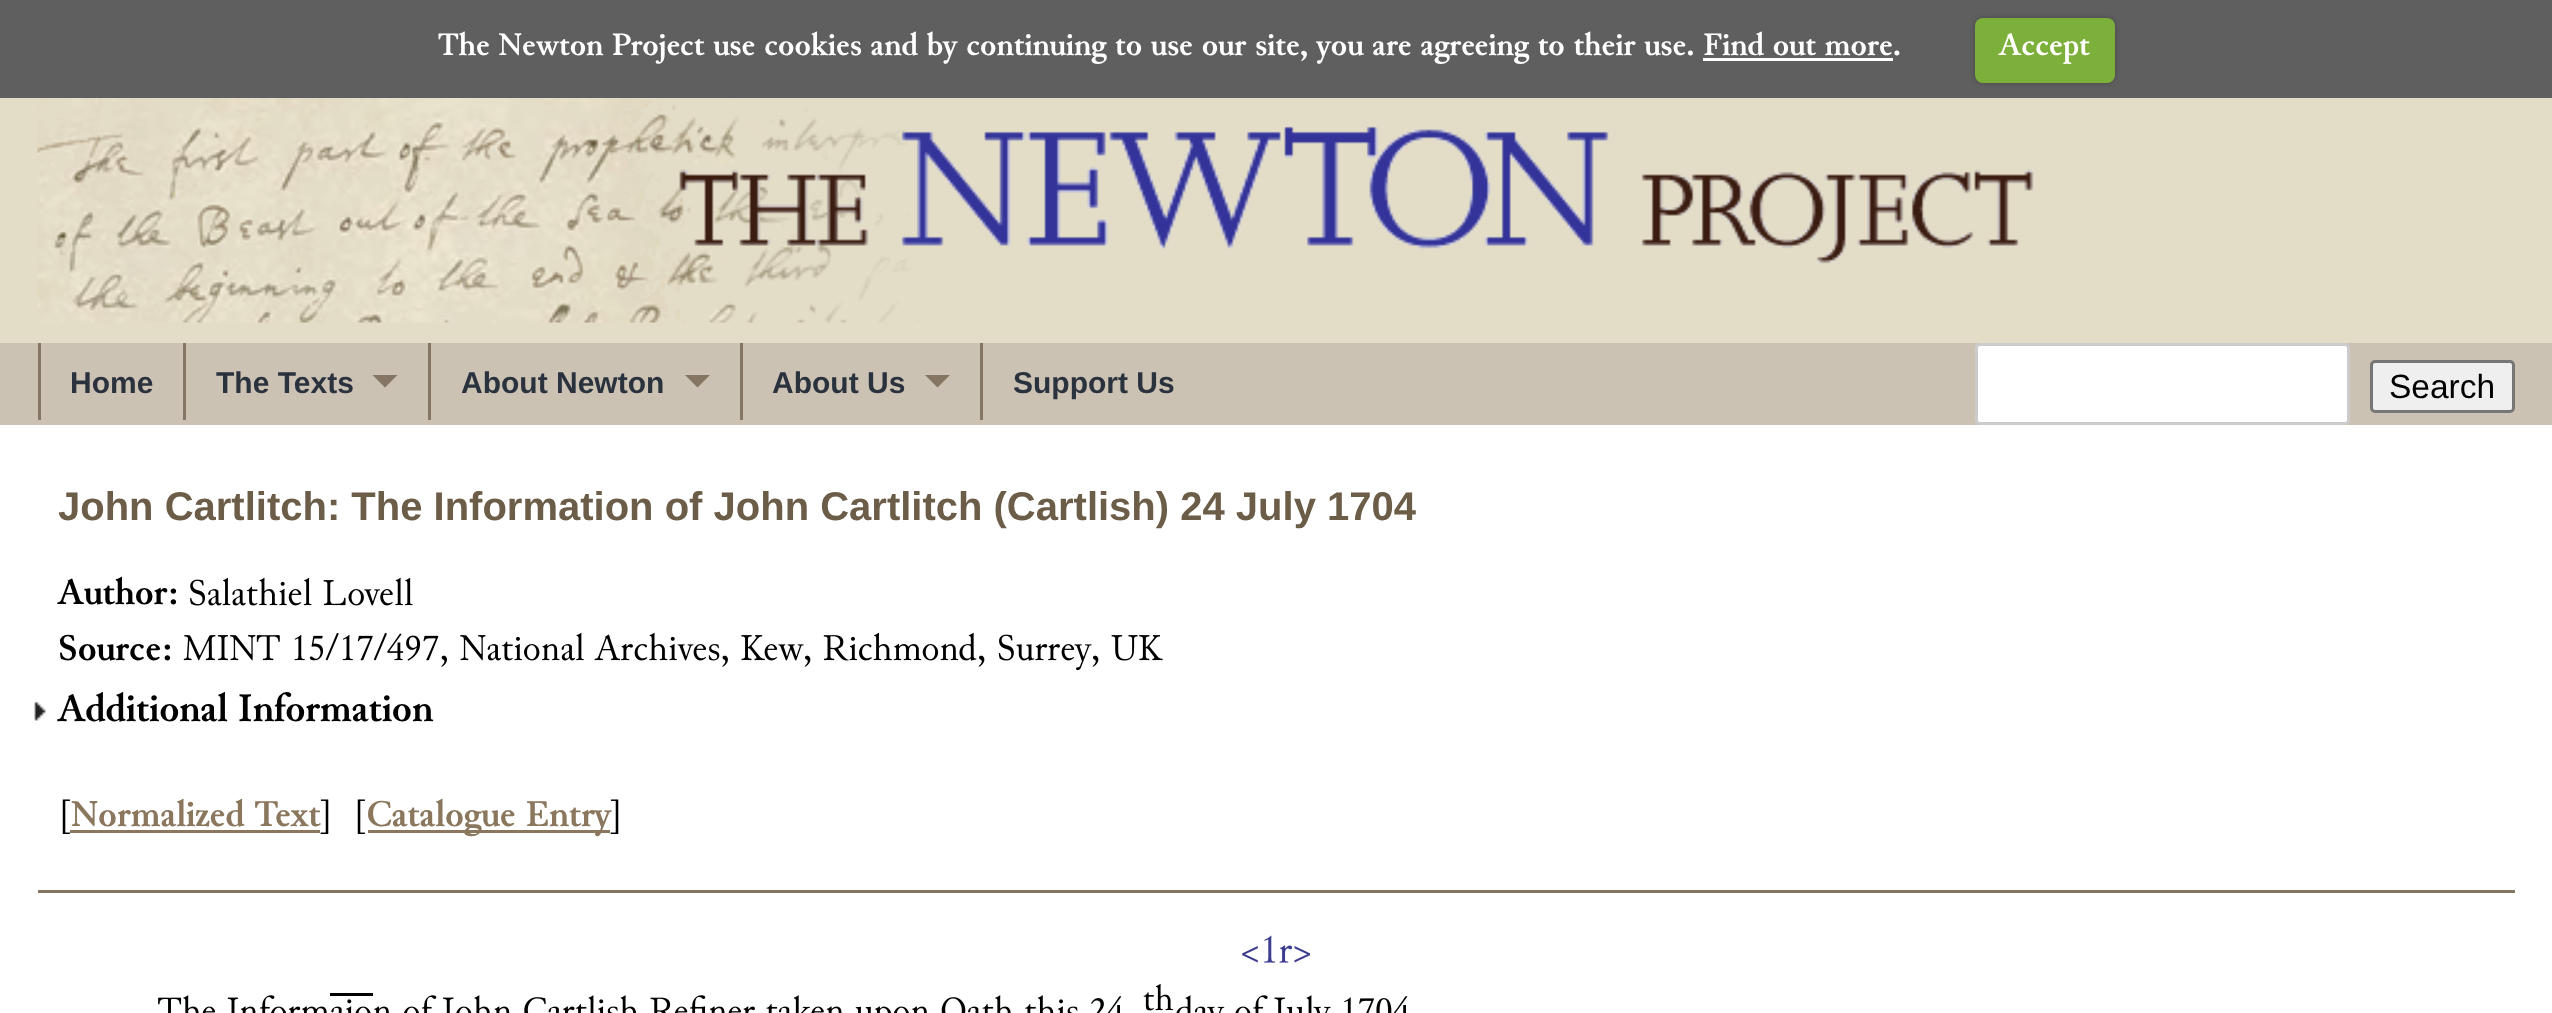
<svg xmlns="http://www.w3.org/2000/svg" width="2552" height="1013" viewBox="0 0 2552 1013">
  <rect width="100%" height="100%" fill="rgb(255,255,255)"/>
  <rect x="0" y="98" width="2552" height="245" fill="rgb(227,221,200)"/>
  <image x="37" y="97" width="1997" height="226" href="pic1.png"/>
  <rect x="0" y="0" width="2552" height="98" fill="rgba(86,86,86,0.95)"/>
  <text x="438" y="55" font-family="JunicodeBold" font-size="32.5" font-weight="bold" fill="rgb(255,255,255)">The Newton Project use cookies and by continuing to use our site, you are agreeing to their use. Find out more.</text>
  <rect x="1975" y="18" width="140" height="65" rx="8" fill="rgba(0,0,0,0.25)" filter="blur(2.5px)"/>
  <rect x="1975" y="18" width="140" height="65" rx="8" fill="rgb(125,175,59)"/>
  <text x="1999" y="55" font-family="JunicodeBold" font-size="32.5" font-weight="bold" fill="rgb(255,255,255)">Accept</text>
  <rect x="1703" y="58" width="190" height="3" fill="rgb(255,255,255)"/>
  <rect x="0" y="343" width="2552" height="82" fill="rgb(204,194,180)"/>
  <rect x="38" y="343" width="3" height="77" fill="rgb(132,118,99)"/>
  <text x="70" y="393" font-family="Liberation Sans" font-size="30" font-weight="bold" fill="rgb(42,50,62)">Home</text>
  <rect x="183" y="343" width="3" height="77" fill="rgb(132,118,99)"/>
  <text x="216" y="393" font-family="Liberation Sans" font-size="30" font-weight="bold" fill="rgb(42,50,62)">The Texts</text>
  <path d="M372.5 375H397.5L385 387.5Z" fill="rgb(132,118,99)"/>
  <rect x="428" y="343" width="3" height="77" fill="rgb(132,118,99)"/>
  <text x="461" y="393" font-family="Liberation Sans" font-size="30" font-weight="bold" fill="rgb(42,50,62)">About Newton</text>
  <path d="M685 375H710L697.5 387.5Z" fill="rgb(132,118,99)"/>
  <rect x="740" y="343" width="3" height="77" fill="rgb(132,118,99)"/>
  <text x="772" y="393" font-family="Liberation Sans" font-size="30" font-weight="bold" fill="rgb(42,50,62)">About Us</text>
  <path d="M925 375H950L937.5 387.5Z" fill="rgb(132,118,99)"/>
  <rect x="980" y="343" width="3" height="77" fill="rgb(132,118,99)"/>
  <text x="1013" y="393" font-family="Liberation Sans" font-size="30" font-weight="bold" fill="rgb(42,50,62)">Support Us</text>
  <rect x="1976.5" y="344.5" width="372" height="79" rx="3.5" fill="rgb(255,255,255)" stroke="rgb(204,204,204)" stroke-width="3"/>
  <rect x="2371.5" y="361.5" width="142" height="50" rx="3.5" fill="rgb(239,239,239)" stroke="rgb(118,118,118)" stroke-width="3"/>
  <text x="2389" y="398" font-family="Liberation Sans" font-size="33.5" fill="rgb(0,0,0)">Search</text>
  <rect x="38" y="890" width="2477" height="3" fill="rgb(132,118,99)"/>
  <text x="58" y="520" font-family="Liberation Sans" font-size="40" font-weight="bold" fill="rgb(108,93,72)">John Cartlitch: The Information of John Cartlitch (Cartlish) 24 July 1704</text>
  <text x="58" y="604" font-family="JunicodeBold" font-size="37.5" font-weight="bold" fill="rgb(0,0,0)">Author:</text>
  <image x="190" y="577" width="223" height="29" href="pic2.png"/>
  <text x="58" y="660" font-family="JunicodeBold" font-size="37.5" font-weight="bold" fill="rgb(0,0,0)">Source:</text>
  <image x="183" y="632" width="980" height="39" href="pic3.png"/>
  <image x="34" y="701" width="12" height="20" href="pic4.png"/>
  <text x="58" y="721" font-family="JunicodeBold" font-size="40" font-weight="bold" fill="rgb(0,0,0)">Additional Information</text>
  <image x="62" y="799" width="8" height="35" href="pic5.png"/>
  <text x="71" y="826" font-family="JunicodeBold" font-size="37.5" font-weight="bold" fill="rgb(138,119,93)">Normalized Text</text>
  <rect x="70" y="830" width="250" height="3" fill="rgb(138,119,93)"/>
  <image x="320" y="799" width="9" height="35" href="pic6.png"/>
  <image x="357" y="799" width="8" height="35" href="pic5.png"/>
  <rect x="368" y="830" width="242" height="3" fill="rgb(138,119,93)"/>
  <text x="367" y="826" font-family="JunicodeBold" font-size="37.5" font-weight="bold" fill="rgb(138,119,93)">Catalogue Entry</text>
  <image x="610" y="799" width="9" height="35" href="pic7.png"/>
  <image x="1242" y="935" width="68" height="28" href="pic8.png"/>
  <rect x="330" y="993" width="43" height="3" fill="rgb(0,0,0)"/>
  <image x="1143" y="983" width="30" height="28" href="pic9.png"/>
  <image x="158" y="995" width="169" height="18" href="pic10.png"/>
  <image x="331" y="999" width="40" height="14" href="pic11.png"/>
  <image x="374" y="995" width="553" height="18" href="pic12.png"/>
  <image x="941" y="995" width="181" height="18" href="pic13.png"/>
  <image x="1176" y="995" width="232" height="18" href="pic14.png"/>
</svg>
